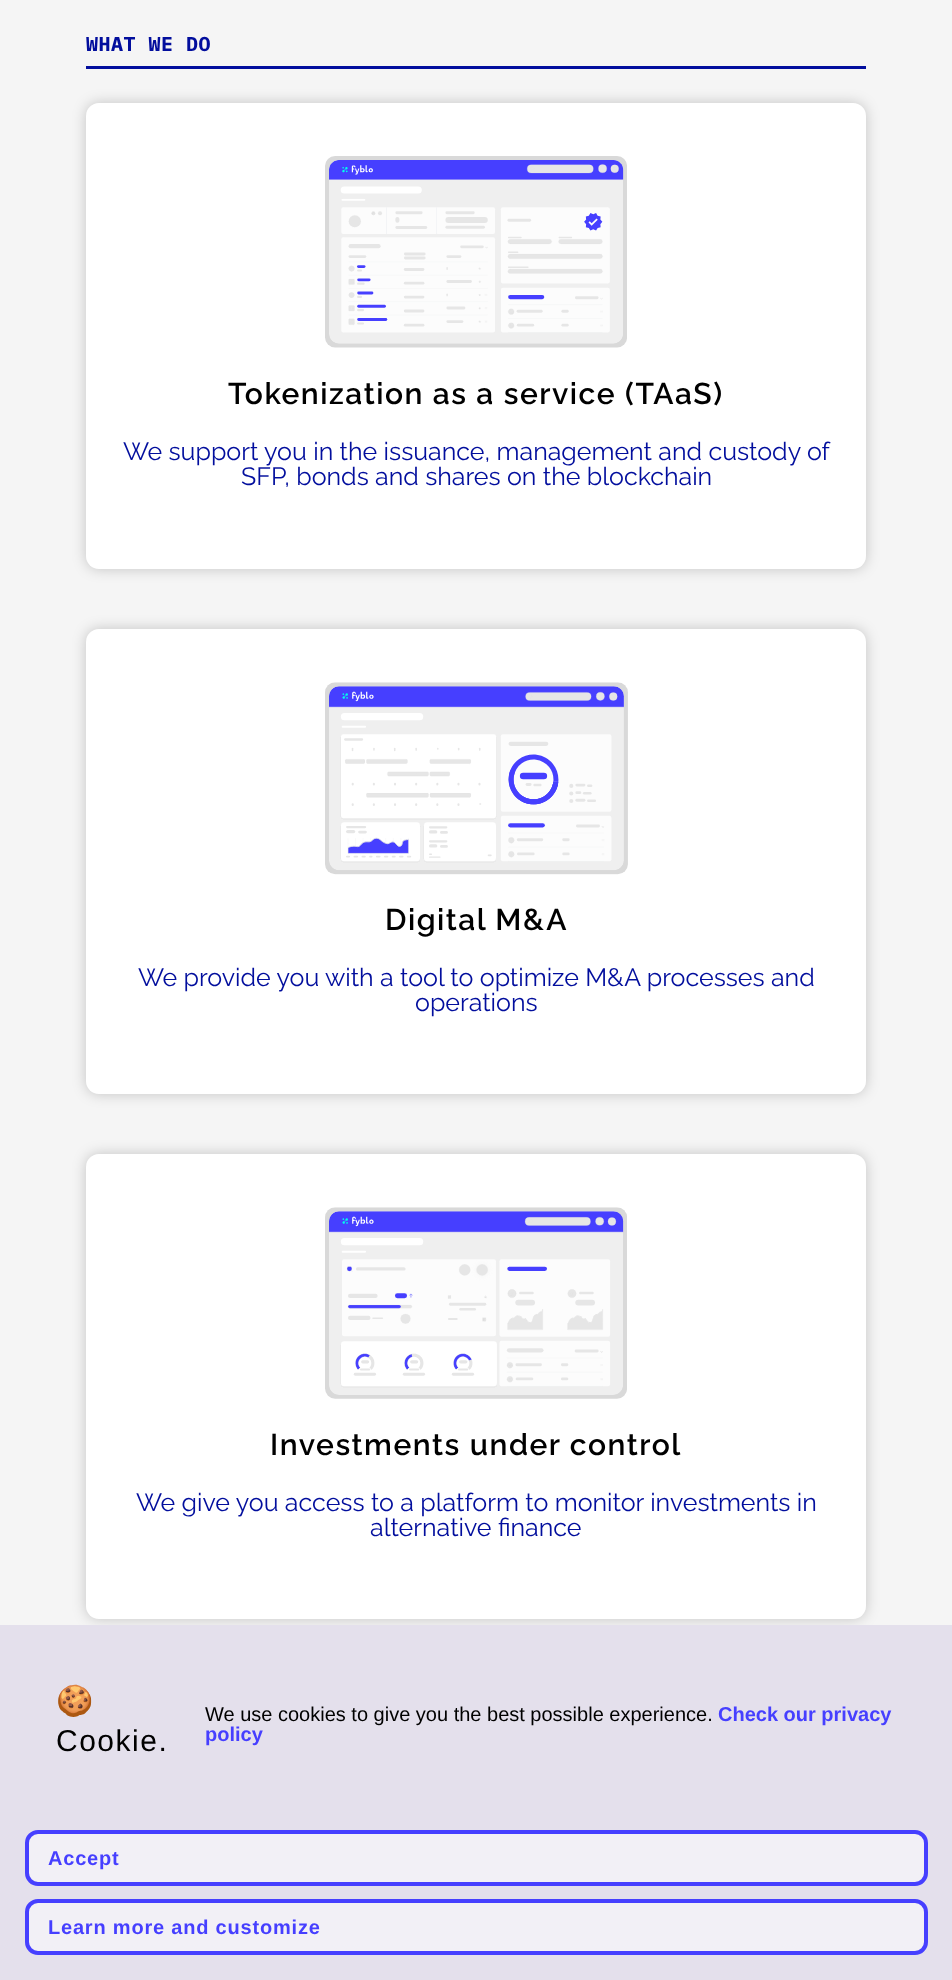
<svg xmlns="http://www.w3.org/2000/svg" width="952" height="1980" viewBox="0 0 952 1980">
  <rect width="100%" height="100%" fill="rgb(245,245,245)"/>
  <text x="86" y="51" font-family="IBM Plex Mono" font-size="20" font-weight="bold" letter-spacing="0.5" fill="rgb(2,14,157)">WHAT WE DO</text>
  <rect x="86" y="66" width="780" height="3" fill="rgb(2,14,157)"/>
  <rect x="86" y="103" width="780" height="466" rx="13" fill="rgba(0,0,0,0.2)" filter="blur(7px)"/>
  <rect x="86" y="103" width="780" height="466" rx="13" fill="rgb(255,255,255)"/>
  <image x="325" y="156" width="302" height="192" href="pic1.png"/>
  <text x="228" y="404" font-family="Raleway" font-size="30" font-weight="600" letter-spacing="1.5" fill="rgb(0,0,0)">Tokenization as a service (TAaS)</text>
  <g font-family="Raleway" font-size="25" fill="rgb(2,14,157)">
    <text x="123" y="460">We support you in the issuance, management and custody of</text>
    <text x="241" y="485">SFP, bonds and shares on the blockchain</text>
  </g>
  <rect x="86" y="629" width="780" height="465" rx="13" fill="rgba(0,0,0,0.2)" filter="blur(7px)"/>
  <rect x="86" y="629" width="780" height="465" rx="13" fill="rgb(255,255,255)"/>
  <image x="325" y="682" width="303" height="193" href="pic2.png"/>
  <text x="385" y="930" font-family="Raleway" font-size="30" font-weight="600" letter-spacing="1.5" fill="rgb(0,0,0)">Digital M&amp;A</text>
  <g font-family="Raleway" font-size="25" fill="rgb(2,14,157)">
    <text x="138" y="986">We provide you with a tool to optimize M&amp;A processes and</text>
    <text x="415" y="1011">operations</text>
  </g>
  <rect x="86" y="1154" width="780" height="465" rx="13" fill="rgba(0,0,0,0.2)" filter="blur(7px)"/>
  <rect x="86" y="1154" width="780" height="465" rx="13" fill="rgb(255,255,255)"/>
  <image x="325" y="1207" width="302" height="192" href="pic3.png"/>
  <text x="270" y="1455" font-family="Raleway" font-size="30" font-weight="600" letter-spacing="1.5" fill="rgb(0,0,0)">Investments under control</text>
  <g font-family="Raleway" font-size="25" fill="rgb(2,14,157)">
    <text x="136" y="1511">We give you access to a platform to monitor investments in</text>
    <text x="370" y="1536">alternative finance</text>
  </g>
  <rect x="0" y="1625" width="952" height="355" fill="rgb(228,224,236)"/>
  <text x="56" y="1711" font-family="Noto Color Emoji" font-size="30" letter-spacing="1.5" fill="rgb(0,0,0)">🍪</text>
  <text x="56" y="1751" font-family="Liberation Sans" font-size="30" letter-spacing="1.5" fill="rgb(0,0,0)">Cookie.</text>
  <text x="205" y="1721" font-family="Liberation Sans" font-size="20" fill="rgb(0,0,0)">We use cookies to give you the best possible experience.</text>
  <g font-family="Liberation Sans" font-size="20" font-weight="bold" fill="rgb(70,63,255)">
    <text x="718" y="1721">Check our privacy</text>
    <text x="205" y="1741">policy</text>
  </g>
  <rect x="27" y="1832" width="899" height="52" rx="11" fill="rgb(242,240,246)" stroke="rgb(70,63,255)" stroke-width="4"/>
  <text x="48" y="1865" font-family="Liberation Sans" font-size="20" font-weight="bold" letter-spacing="0.8" fill="rgb(70,63,255)">Accept</text>
  <rect x="27" y="1901" width="899" height="52" rx="11" fill="rgb(242,240,246)" stroke="rgb(70,63,255)" stroke-width="4"/>
  <text x="48" y="1934" font-family="Liberation Sans" font-size="20" font-weight="bold" letter-spacing="0.8" fill="rgb(70,63,255)">Learn more and customize</text>
</svg>
